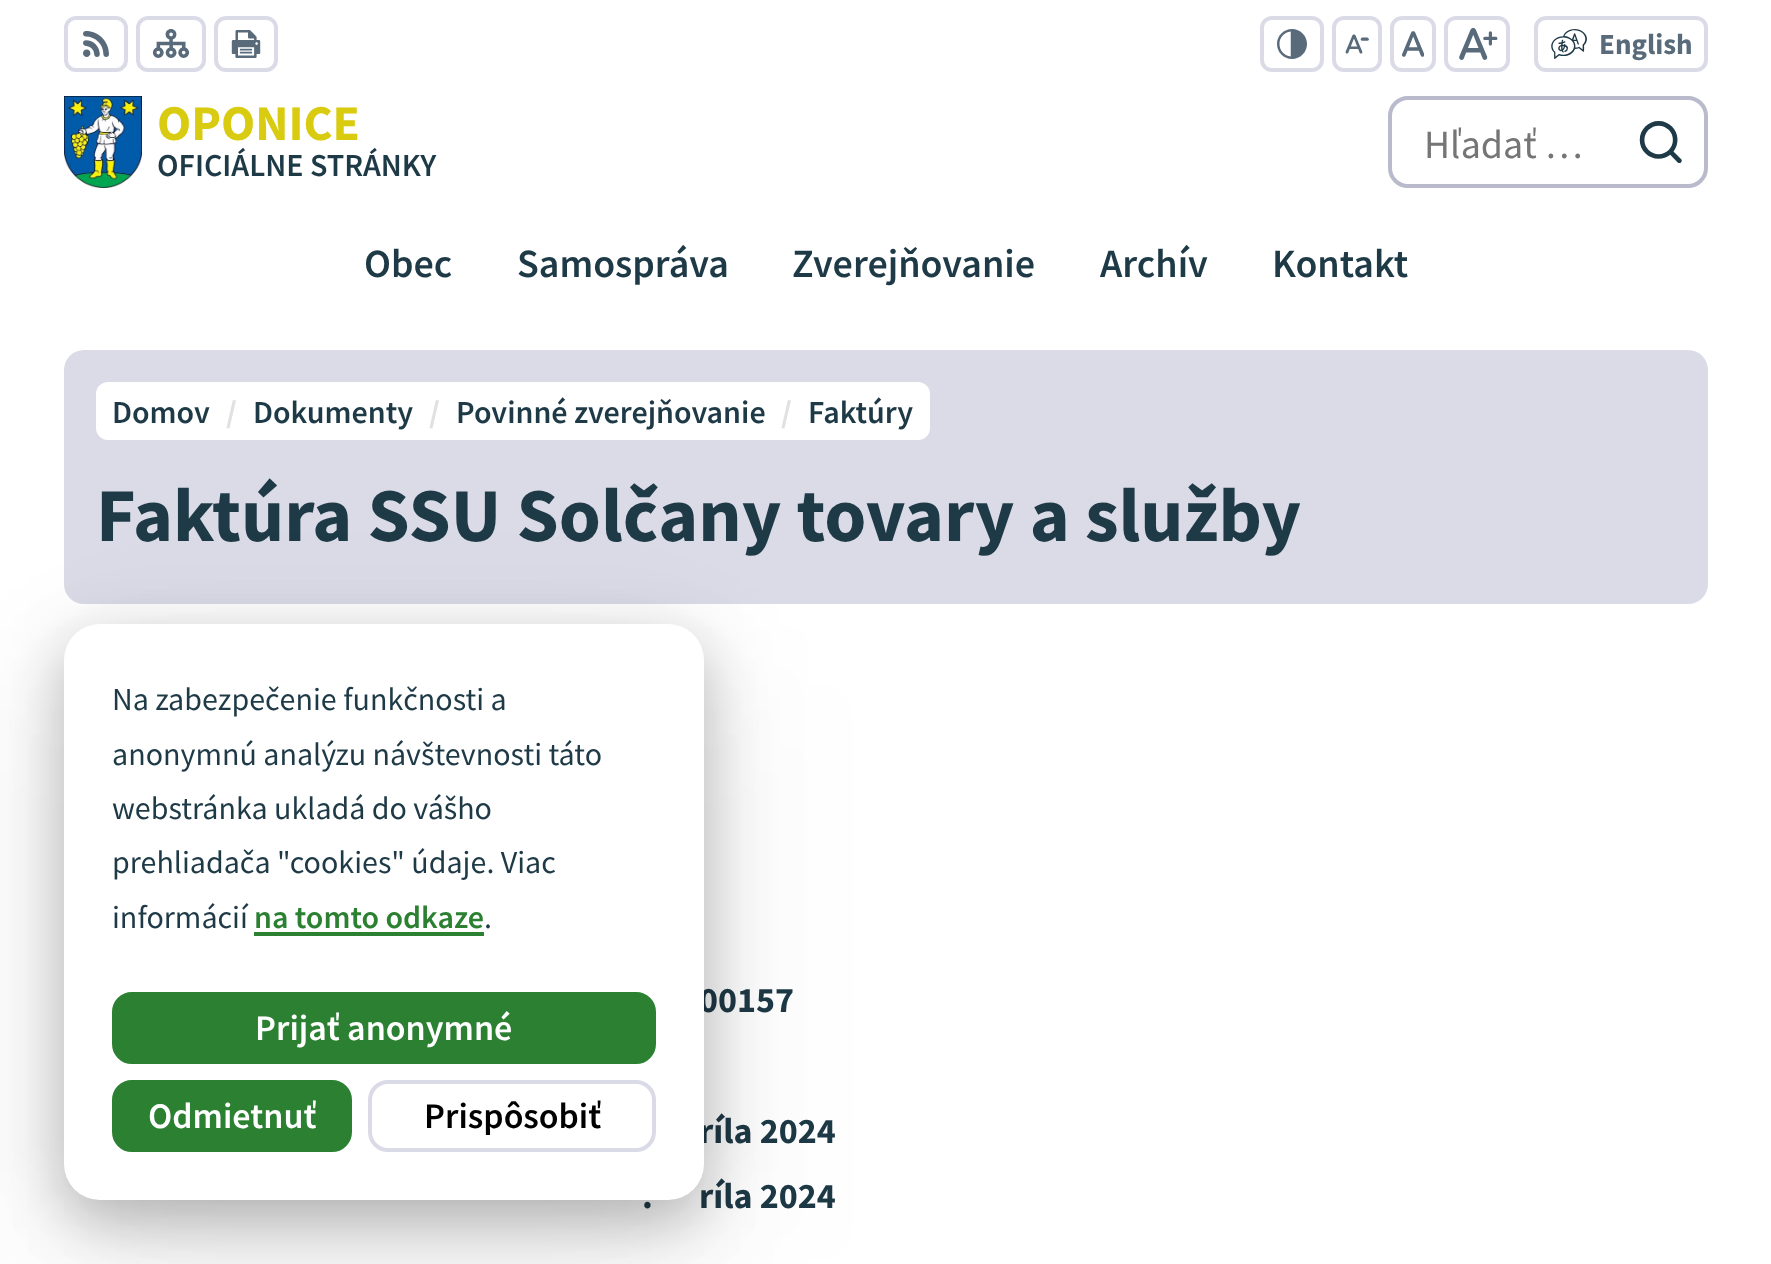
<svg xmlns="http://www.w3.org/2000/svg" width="1771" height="1264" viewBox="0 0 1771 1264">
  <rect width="100%" height="100%" fill="rgb(255,255,255)"/>
  <rect x="66" y="18" width="60" height="52" rx="10" fill="none" stroke="rgb(219,219,231)" stroke-width="4"/>
  <image x="83" y="31" width="26" height="26" href="pic1.png"/>
  <rect x="138" y="18" width="66" height="52" rx="10" fill="none" stroke="rgb(219,219,231)" stroke-width="4"/>
  <image x="152" y="29" width="38" height="29" href="pic2.png"/>
  <rect x="216" y="18" width="60" height="52" rx="10" fill="none" stroke="rgb(219,219,231)" stroke-width="4"/>
  <image x="231" y="30" width="30" height="28" href="pic3.png"/>
  <rect x="1262" y="18" width="60" height="52" rx="10" fill="none" stroke="rgb(219,219,231)" stroke-width="4"/>
  <image x="1277" y="29" width="30" height="30" href="pic4.png"/>
  <rect x="1334" y="18" width="46" height="52" rx="10" fill="none" stroke="rgb(219,219,231)" stroke-width="4"/>
  <image x="1345" y="34" width="24" height="20" href="pic5.png"/>
  <rect x="1392" y="18" width="42" height="52" rx="10" fill="none" stroke="rgb(219,219,231)" stroke-width="4"/>
  <image x="1402" y="31" width="22" height="26" href="pic6.png"/>
  <rect x="1446" y="18" width="62" height="52" rx="10" fill="none" stroke="rgb(219,219,231)" stroke-width="4"/>
  <image x="1459" y="28" width="39" height="32" href="pic7.png"/>
  <rect x="1536" y="18" width="170" height="52" rx="10" fill="none" stroke="rgb(219,219,231)" stroke-width="4"/>
  <image x="1551" y="29" width="36" height="30" href="pic8.png"/>
  <text x="1599" y="54" font-family="Source Sans Pro" font-size="29" font-weight="bold" fill="rgb(89,106,122)">English</text>
  <image x="64" y="96" width="78" height="92" href="pic9.png"/>
  <text x="157" y="140" font-family="Source Sans Pro" font-size="50" font-weight="bold" fill="rgb(216,203,16)">OPONICE</text>
  <text x="157" y="176" font-family="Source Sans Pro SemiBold" font-size="32" font-weight="600" fill="rgb(31,58,71)">OFICIÁLNE STRÁNKY</text>
  <rect x="1390" y="98" width="316" height="88" rx="18" fill="none" stroke="rgb(185,186,203)" stroke-width="4"/>
  <text x="1424" y="158" font-family="Source Sans Pro" font-size="40" fill="rgb(117,117,117)">Hľadať …</text>
  <image x="1639" y="121" width="43" height="42" href="pic10.png"/>
  <g font-family="Source Sans Pro SemiBold" font-size="40" font-weight="600" fill="rgb(31,58,71)">
    <text x="364" y="277">Obec</text>
    <text x="517" y="277">Samospráva</text>
    <text x="792" y="277">Zverejňovanie</text>
    <text x="1100" y="277">Archív</text>
    <text x="1272" y="277">Kontakt</text>
  </g>
  <rect x="64" y="350" width="1644" height="254" rx="20" fill="rgb(219,219,231)"/>
  <rect x="96" y="382" width="834" height="58" rx="12" fill="rgb(255,255,255)"/>
  <text x="112" y="423" font-family="Source Sans Pro SemiBold" font-size="32" font-weight="600" fill="rgb(31,58,71)">Domov</text>
  <text x="226" y="423" font-family="Source Sans Pro" font-size="32" font-weight="bold" fill="rgb(225,225,225)">/</text>
  <text x="253" y="423" font-family="Source Sans Pro SemiBold" font-size="32" font-weight="600" fill="rgb(31,58,71)">Dokumenty</text>
  <text x="429" y="423" font-family="Source Sans Pro" font-size="32" font-weight="bold" fill="rgb(225,225,225)">/</text>
  <text x="456" y="423" font-family="Source Sans Pro SemiBold" font-size="32" font-weight="600" fill="rgb(31,58,71)">Povinné zverejňovanie</text>
  <text x="781" y="423" font-family="Source Sans Pro" font-size="32" font-weight="bold" fill="rgb(225,225,225)">/</text>
  <text x="808" y="423" font-family="Source Sans Pro SemiBold" font-size="32" font-weight="600" fill="rgb(31,58,71)">Faktúry</text>
  <text x="96" y="541" font-family="Source Sans Pro" font-size="76" font-weight="bold" fill="rgb(31,58,71)">Faktúra SSU Solčany tovary a služby</text>
  <g font-family="Source Sans Pro" font-size="36" font-weight="bold" fill="rgb(31,58,71)">
    <text x="699" y="1012">00157</text>
    <text x="699" y="1143">ríla 2024</text>
    <text x="642" y="1208">.</text>
    <text x="699" y="1208">ríla 2024</text>
  </g>
  <rect x="64" y="684" width="640" height="576" rx="36" fill="rgba(0,0,0,0.05)" filter="blur(90px)"/>
  <rect x="64" y="664" width="640" height="576" rx="36" fill="rgba(0,0,0,0.05)" filter="blur(60px)"/>
  <rect x="64" y="644" width="640" height="576" rx="36" fill="rgba(0,0,0,0.25)" filter="blur(30px)"/>
  <rect x="64" y="624" width="640" height="576" rx="36" fill="rgb(255,255,255)"/>
  <g font-family="Source Sans Pro" font-size="32" fill="rgb(31,58,71)">
    <text>
      <tspan x="112" y="710">Na zabezpečenie funkčnosti a</tspan>
      <tspan x="112" y="765">anonymnú analýzu návštevnosti táto</tspan>
      <tspan x="112" y="819">webstránka ukladá do vášho</tspan>
      <tspan x="112" y="873">prehliadača "cookies" údaje. Viac</tspan>
      <tspan x="112" y="928">informácií</tspan>
    </text>
  </g>
  <text x="254" y="928" font-family="Source Sans Pro SemiBold" font-size="32" font-weight="600" fill="rgb(43,128,50)">na tomto odkaze</text>
  <rect x="254" y="932" width="230" height="4" fill="rgb(43,128,50)"/>
  <text x="484" y="928" font-family="Source Sans Pro" font-size="32" fill="rgb(31,58,71)">.</text>
  <rect x="114" y="994" width="540" height="68" rx="18" fill="rgb(43,128,50)" stroke="rgb(43,128,50)" stroke-width="4"/>
  <text x="255" y="1040" font-family="Source Sans Pro SemiBold" font-size="36" font-weight="600" fill="rgb(255,255,255)">Prijať anonymné</text>
  <rect x="114" y="1082" width="236" height="68" rx="18" fill="rgb(43,128,50)" stroke="rgb(43,128,50)" stroke-width="4"/>
  <text x="148" y="1128" font-family="Source Sans Pro SemiBold" font-size="36" font-weight="600" fill="rgb(255,255,255)">Odmietnuť</text>
  <rect x="370" y="1082" width="284" height="68" rx="18" fill="none" stroke="rgb(219,219,231)" stroke-width="4"/>
  <text x="424" y="1128" font-family="Source Sans Pro SemiBold" font-size="36" font-weight="600" fill="rgb(0,0,0)">Prispôsobiť</text>
</svg>
